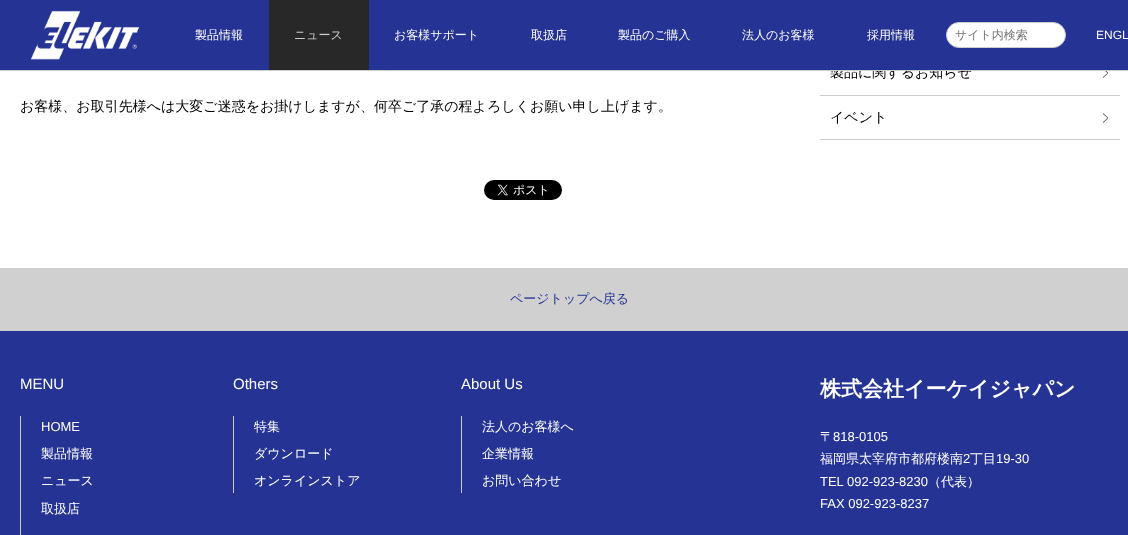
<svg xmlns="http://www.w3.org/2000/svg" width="1128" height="535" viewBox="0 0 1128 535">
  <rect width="100%" height="100%" fill="rgb(255,255,255)"/>
  <text x="830" y="77" font-family="WenQuanYi Zen Hei" font-size="14" font-weight="500" fill="rgb(0,0,0)">製品に関するお知らせ</text>
  <rect x="0" y="0" width="1128" height="70" fill="rgb(37,51,148)"/>
  <rect x="0" y="70" width="1128" height="1" fill="rgb(204,204,204)"/>
  <image x="30" y="10" width="110" height="50" href="pic1.png"/>
  <text x="195" y="39" font-family="WenQuanYi Zen Hei" font-size="12" font-weight="500" fill="rgb(255,255,255)">製品情報</text>
  <rect x="269" y="0" width="100" height="70" fill="rgb(40,40,40)"/>
  <text x="294" y="39" font-family="WenQuanYi Zen Hei" font-size="12" font-weight="500" fill="rgb(204,204,204)">ニュース</text>
  <g font-family="WenQuanYi Zen Hei" font-size="12" font-weight="500" fill="rgb(255,255,255)">
    <text x="394" y="39">お客様サポート</text>
    <text x="531" y="39">取扱店</text>
    <text x="618" y="39">製品のご購入</text>
    <text x="742" y="39">法人のお客様</text>
    <text x="867" y="39">採用情報</text>
  </g>
  <rect x="946.5" y="22.5" width="119" height="25" rx="12.5" fill="rgb(255,255,255)" stroke="rgb(204,204,204)"/>
  <text x="955" y="39" font-family="WenQuanYi Zen Hei" font-size="12" font-weight="500" fill="rgb(117,117,117)">サイト内検索</text>
  <text x="1096" y="39" font-family="Liberation Sans" font-size="12" fill="rgb(255,255,255)">ENGL</text>
  <text x="20" y="111" font-family="WenQuanYi Zen Hei" font-size="14" font-weight="500" fill="rgb(0,0,0)">お客様、お取引先様へは大変ご迷惑をお掛けしますが、何卒ご了承の程よろしくお願い申し上げます。</text>
  <image x="1103" y="71" width="5" height="7" href="pic2.png"/>
  <rect x="820" y="95" width="300" height="1" fill="rgb(204,204,204)"/>
  <image x="1103" y="113" width="5" height="10" href="pic3.png"/>
  <rect x="820" y="139" width="300" height="1" fill="rgb(204,204,204)"/>
  <text x="830" y="122" font-family="WenQuanYi Zen Hei" font-size="14" font-weight="500" fill="rgb(0,0,0)">イベント</text>
  <image x="484" y="180" width="78" height="20" href="pic4.png"/>
  <rect x="0" y="268" width="1128" height="62" fill="rgb(208,208,208)"/>
  <text x="510" y="303" font-family="WenQuanYi Zen Hei" font-size="13" font-weight="500" fill="rgb(37,51,148)">ページトップへ戻る</text>
  <rect x="0" y="331" width="1128" height="204" fill="rgb(37,51,148)"/>
  <rect x="0" y="330" width="1128" height="1" fill="rgb(204,204,204)"/>
  <text x="20" y="389" font-family="Liberation Sans" font-size="15" fill="rgb(255,255,255)">MENU</text>
  <rect x="20" y="416" width="1" height="119" fill="rgb(204,204,204)"/>
  <text x="41" y="431" font-family="Liberation Sans" font-size="13" fill="rgb(255,255,255)">HOME</text>
  <g font-family="WenQuanYi Zen Hei" font-size="13" font-weight="500" fill="rgb(255,255,255)">
    <text x="41" y="458">製品情報</text>
    <text x="41" y="485">ニュース</text>
    <text x="41" y="513">取扱店</text>
  </g>
  <text x="233" y="389" font-family="Liberation Sans" font-size="15" fill="rgb(255,255,255)">Others</text>
  <rect x="233" y="416" width="1" height="77" fill="rgb(204,204,204)"/>
  <g font-family="WenQuanYi Zen Hei" font-size="13" font-weight="500" fill="rgb(255,255,255)">
    <text x="254" y="431">特集</text>
    <text x="254" y="458">ダウンロード</text>
    <text x="254" y="485">オンラインストア</text>
  </g>
  <text x="461" y="389" font-family="Liberation Sans" font-size="15" fill="rgb(255,255,255)">About Us</text>
  <rect x="461" y="416" width="1" height="77" fill="rgb(204,204,204)"/>
  <g font-family="WenQuanYi Zen Hei" font-size="13" font-weight="500" fill="rgb(255,255,255)">
    <text x="482" y="431">法人のお客様へ</text>
    <text x="482" y="458">企業情報</text>
    <text x="482" y="485">お問い合わせ</text>
  </g>
  <text x="820" y="396" font-family="WenQuanYi Zen Hei" font-size="21" font-weight="bold" fill="rgb(255,255,255)">株式会社イーケイジャパン</text>
  <text x="820" y="441" font-family="WenQuanYi Zen Hei" font-size="13" font-weight="500" fill="rgb(255,255,255)">〒</text>
  <text x="833" y="441" font-family="Liberation Sans" font-size="13" fill="rgb(255,255,255)">818-0105</text>
  <text x="820" y="463" font-family="WenQuanYi Zen Hei" font-size="13" font-weight="500" fill="rgb(255,255,255)">福岡県太宰府市都府楼南</text>
  <text x="963" y="463" font-family="Liberation Sans" font-size="13" fill="rgb(255,255,255)">2</text>
  <text x="970" y="463" font-family="WenQuanYi Zen Hei" font-size="13" font-weight="500" fill="rgb(255,255,255)">丁目</text>
  <g font-family="Liberation Sans" font-size="13" fill="rgb(255,255,255)">
    <text x="996" y="463">19-30</text>
    <text x="820" y="486">TEL 092-923-8230</text>
  </g>
  <text x="928" y="486" font-family="WenQuanYi Zen Hei" font-size="13" font-weight="500" fill="rgb(255,255,255)">（代表）</text>
  <text x="820" y="508" font-family="Liberation Sans" font-size="13" fill="rgb(255,255,255)">FAX 092-923-8237</text>
</svg>
